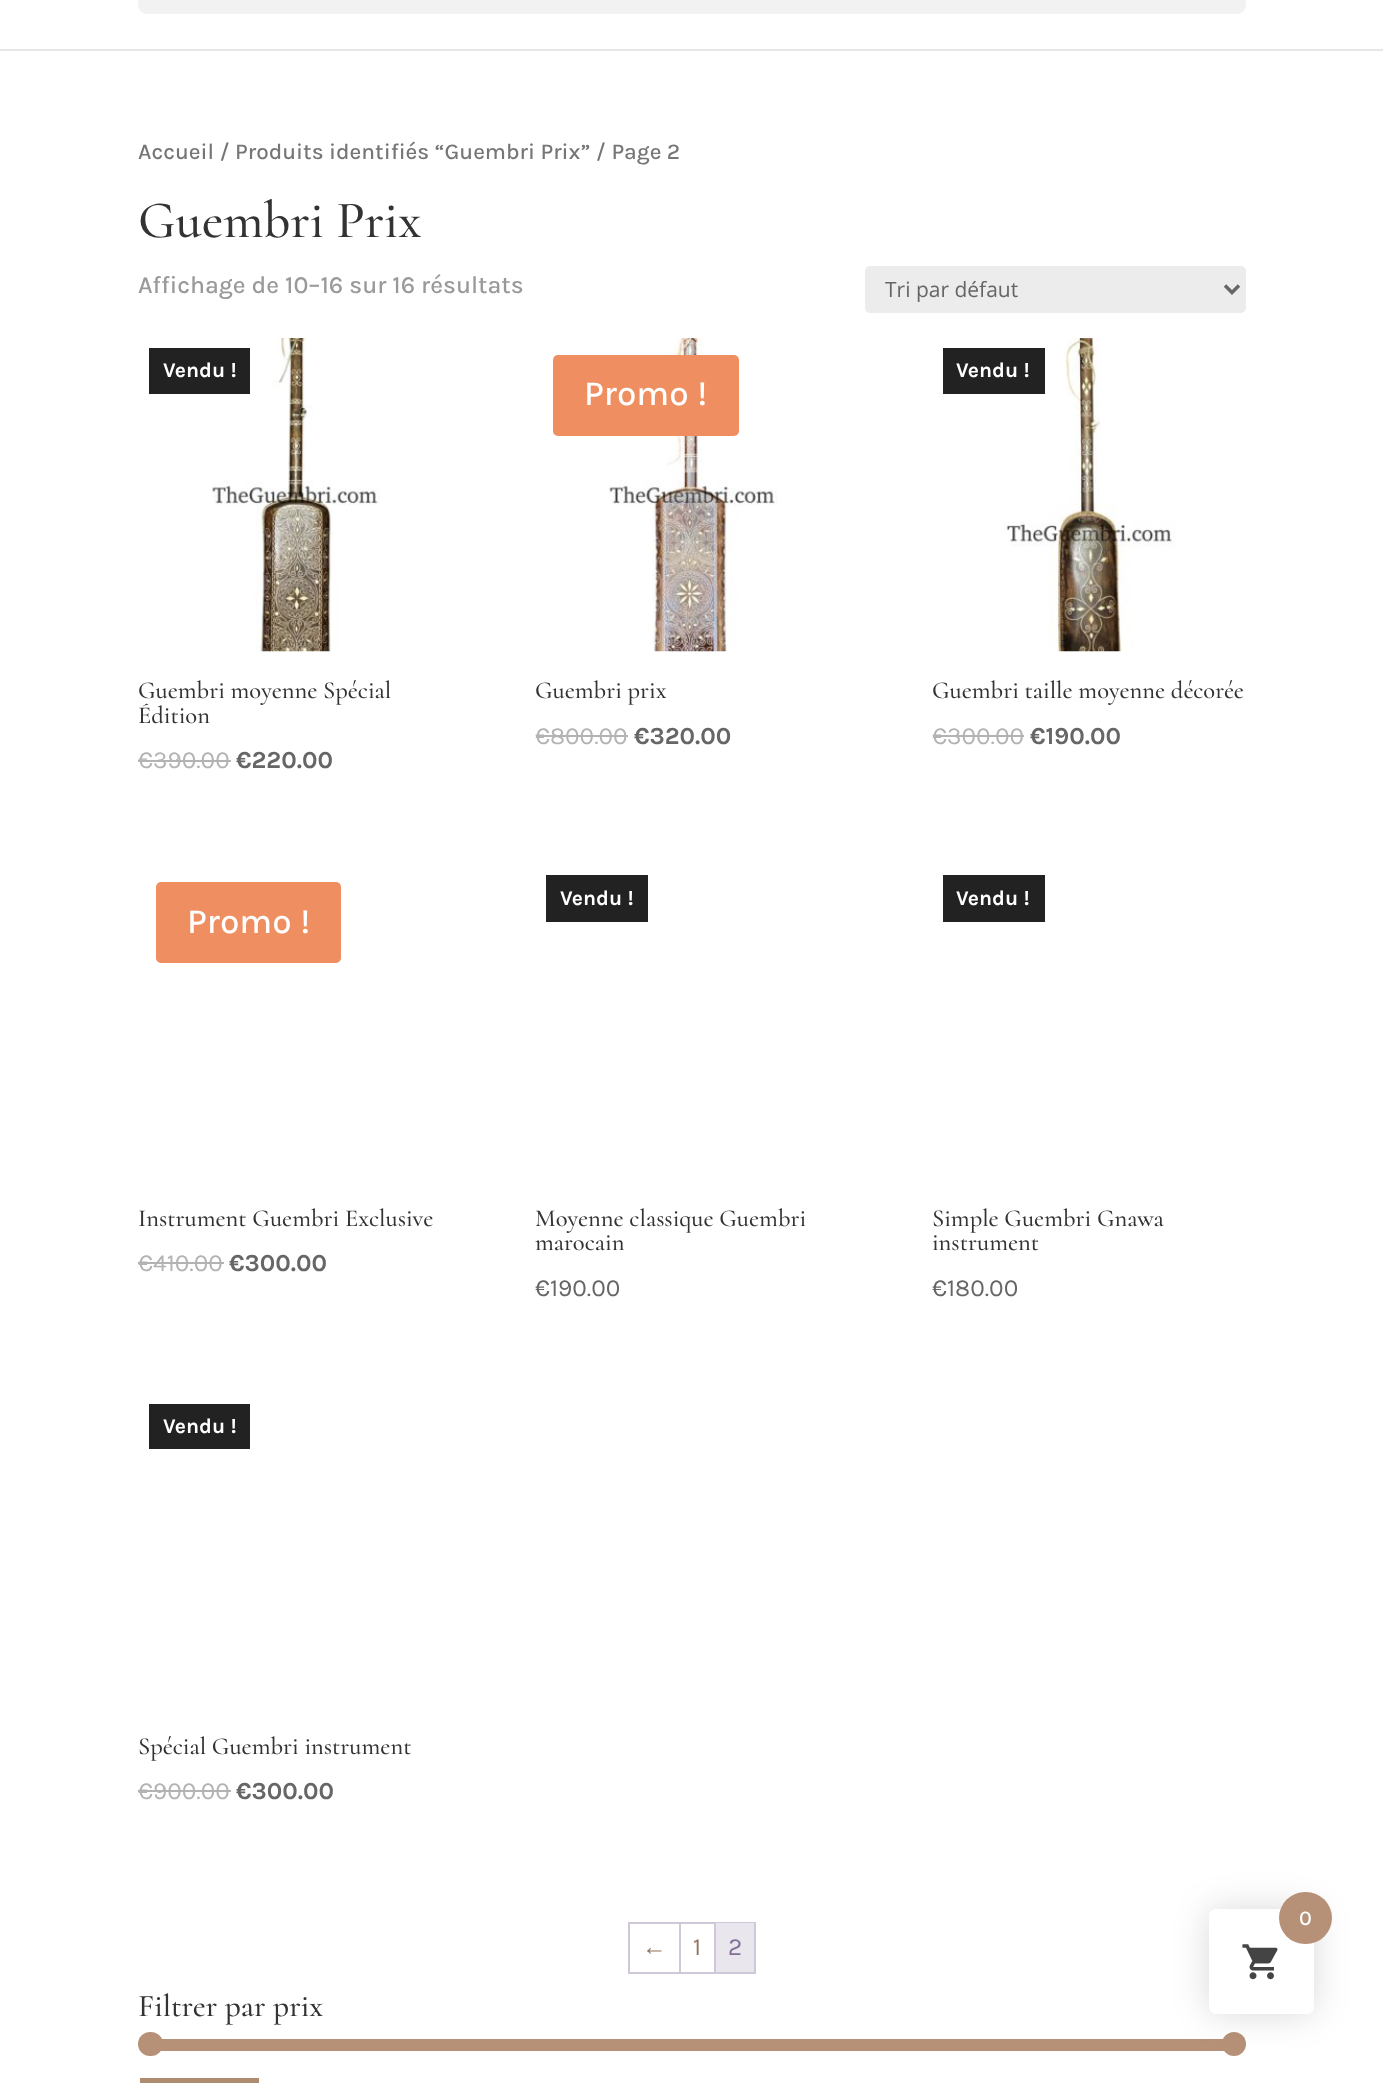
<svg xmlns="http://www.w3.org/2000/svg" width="1383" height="2083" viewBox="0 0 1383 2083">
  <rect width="100%" height="100%" fill="rgb(255,255,255)"/>
  <rect x="0" y="49" width="1383" height="2" fill="rgb(230,230,230)"/>
  <rect x="138" y="-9" width="1108" height="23" rx="9" fill="rgb(242,242,242)"/>
  <text x="138" y="159" font-family="Karla" font-size="22.5" font-weight="500" fill="rgb(118,118,118)">Accueil / Produits identifiés “Guembri Prix” / Page 2</text>
  <text x="138" y="237" font-family="Cormorant" font-size="52.5" font-weight="300" fill="rgb(51,51,51)">Guembri Prix</text>
  <text x="138" y="293" font-family="Karla" font-size="24.5" font-weight="500" fill="rgb(153,153,153)">Affichage de 10–16 sur 16 résultats</text>
  <rect x="865" y="266" width="381" height="47" rx="5" fill="rgb(236,236,236)"/>
  <path d="M1225 285.5L1232 292.5L1239 285.5" fill="none" stroke="rgb(102,102,102)" stroke-width="3.5"/>
  <text x="885" y="297" font-family="Open Sans" font-size="21" fill="rgb(102,102,102)">Tri par défaut</text>
  <image x="212" y="338" width="168" height="314" href="pic1.png"/>
  <rect x="149" y="348" width="101" height="46" fill="rgb(34,34,34)"/>
  <text x="163" y="377" font-family="Karla" font-size="21" font-weight="bold" fill="rgb(255,255,255)">Vendu !</text>
  <g font-family="Cormorant" font-size="24.5" font-weight="300" fill="rgb(51,51,51)">
    <text>
      <tspan x="138" y="698">Guembri moyenne Spécial</tspan>
      <tspan x="138" y="723">Édition</tspan>
    </text>
  </g>
  <text x="138" y="768" font-family="Karla" font-size="24.5" fill="rgb(179,179,179)">€390.00</text>
  <rect x="138" y="760" width="93" height="2" fill="rgb(179,179,179)"/>
  <text x="236" y="768" font-family="Karla" font-size="24.5" font-weight="bold" fill="rgb(102,102,102)">€220.00</text>
  <image x="609" y="338" width="169" height="314" href="pic2.png"/>
  <rect x="553" y="355" width="186" height="81" rx="5" fill="rgb(239,143,97)"/>
  <text x="584" y="405" font-family="Karla" font-size="35" font-weight="500" fill="rgb(255,255,255)">Promo !</text>
  <text x="535" y="698" font-family="Cormorant" font-size="24.5" font-weight="300" fill="rgb(51,51,51)">Guembri prix</text>
  <text x="535" y="744" font-family="Karla" font-size="24.5" fill="rgb(179,179,179)">€800.00</text>
  <rect x="536" y="735" width="92" height="2" fill="rgb(179,179,179)"/>
  <text x="634" y="744" font-family="Karla" font-size="24.5" font-weight="bold" fill="rgb(102,102,102)">€320.00</text>
  <image x="1004" y="338" width="171" height="314" href="pic3.png"/>
  <rect x="943" y="348" width="102" height="46" fill="rgb(34,34,34)"/>
  <text x="956" y="377" font-family="Karla" font-size="21" font-weight="bold" fill="rgb(255,255,255)">Vendu !</text>
  <text x="932" y="698" font-family="Cormorant" font-size="24.5" font-weight="300" fill="rgb(51,51,51)">Guembri taille moyenne décorée</text>
  <text x="932" y="744" font-family="Karla" font-size="24.5" fill="rgb(179,179,179)">€300.00</text>
  <rect x="933" y="735" width="91" height="2" fill="rgb(179,179,179)"/>
  <text x="1030" y="744" font-family="Karla" font-size="24.5" font-weight="bold" fill="rgb(102,102,102)">€190.00</text>
  <rect x="156" y="882" width="185" height="81" rx="5" fill="rgb(239,143,97)"/>
  <text x="187" y="933" font-family="Karla" font-size="35" font-weight="500" fill="rgb(255,255,255)">Promo !</text>
  <text x="138" y="1226" font-family="Cormorant" font-size="24.5" font-weight="300" fill="rgb(51,51,51)">Instrument Guembri Exclusive</text>
  <text x="138" y="1271" font-family="Karla" font-size="24.5" fill="rgb(179,179,179)">€410.00</text>
  <rect x="138" y="1262" width="86" height="2" fill="rgb(179,179,179)"/>
  <text x="229" y="1271" font-family="Karla" font-size="24.5" font-weight="bold" fill="rgb(102,102,102)">€300.00</text>
  <rect x="546" y="875" width="102" height="47" fill="rgb(34,34,34)"/>
  <text x="560" y="905" font-family="Karla" font-size="21" font-weight="bold" fill="rgb(255,255,255)">Vendu !</text>
  <g font-family="Cormorant" font-size="24.5" font-weight="300" fill="rgb(51,51,51)">
    <text>
      <tspan x="535" y="1226">Moyenne classique Guembri</tspan>
      <tspan x="535" y="1250">marocain</tspan>
    </text>
  </g>
  <text x="535" y="1296" font-family="Karla" font-size="24.5" fill="rgb(102,102,102)">€190.00</text>
  <rect x="943" y="875" width="102" height="47" fill="rgb(34,34,34)"/>
  <text x="956" y="905" font-family="Karla" font-size="21" font-weight="bold" fill="rgb(255,255,255)">Vendu !</text>
  <g font-family="Cormorant" font-size="24.5" font-weight="300" fill="rgb(51,51,51)">
    <text>
      <tspan x="932" y="1226">Simple Guembri Gnawa</tspan>
      <tspan x="932" y="1250">instrument</tspan>
    </text>
  </g>
  <text x="932" y="1296" font-family="Karla" font-size="24.5" fill="rgb(102,102,102)">€180.00</text>
  <rect x="149" y="1404" width="101" height="45" fill="rgb(34,34,34)"/>
  <text x="163" y="1433" font-family="Karla" font-size="21" font-weight="bold" fill="rgb(255,255,255)">Vendu !</text>
  <text x="138" y="1754" font-family="Cormorant" font-size="24.5" font-weight="300" fill="rgb(51,51,51)">Spécial Guembri instrument</text>
  <text x="138" y="1799" font-family="Karla" font-size="24.5" fill="rgb(179,179,179)">€900.00</text>
  <rect x="138" y="1790" width="93" height="2" fill="rgb(179,179,179)"/>
  <text x="236" y="1799" font-family="Karla" font-size="24.5" font-weight="bold" fill="rgb(102,102,102)">€300.00</text>
  <rect x="628" y="1922" width="128" height="2" fill="rgb(207,200,216)"/>
  <rect x="628" y="1972" width="128" height="2" fill="rgb(207,200,216)"/>
  <rect x="628" y="1922" width="2" height="52" fill="rgb(207,200,216)"/>
  <rect x="679" y="1923" width="2" height="49" fill="rgb(207,200,216)"/>
  <text x="642" y="1955" font-family="Liberation Sans" font-size="24.5" fill="rgb(150,118,97)">←</text>
  <rect x="714" y="1923" width="2" height="49" fill="rgb(207,200,216)"/>
  <text x="693" y="1955" font-family="Karla" font-size="24.5" fill="rgb(150,118,97)">1</text>
  <rect x="754" y="1923" width="2" height="49" fill="rgb(207,200,216)"/>
  <rect x="716" y="1923" width="38" height="49" fill="rgb(233,230,237)"/>
  <text x="728" y="1955" font-family="Karla" font-size="24.5" fill="rgb(129,111,152)">2</text>
  <text x="138" y="2016" font-family="Cormorant" font-size="31.5" font-weight="300" fill="rgb(51,51,51)">Filtrer par prix</text>
  <rect x="160" y="2039" width="1065" height="12" fill="rgb(183,145,119)"/>
  <rect x="138" y="2032" width="25" height="24" rx="12" fill="rgb(183,145,119)"/>
  <circle cx="1234" cy="2044" r="12" fill="rgb(183,145,119)"/>
  <rect x="139" y="2077" width="121" height="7" fill="rgb(173,140,112)" stroke="rgb(255,255,255)" stroke-width="2"/>
  <rect x="1209" y="1909" width="105" height="105" rx="7" fill="rgba(0,0,0,0.15)" filter="blur(17.5px)"/>
  <rect x="1209" y="1909" width="105" height="105" rx="7" fill="rgb(255,255,255)"/>
  <rect x="1279" y="1892" width="53" height="52" rx="26" fill="rgb(183,145,119)"/>
  <text x="1299" y="1925" font-family="Karla" font-size="21" font-weight="500" fill="rgb(255,255,255)">0</text>
  <image x="1242" y="1944" width="36" height="36" href="pic4.png"/>
</svg>
